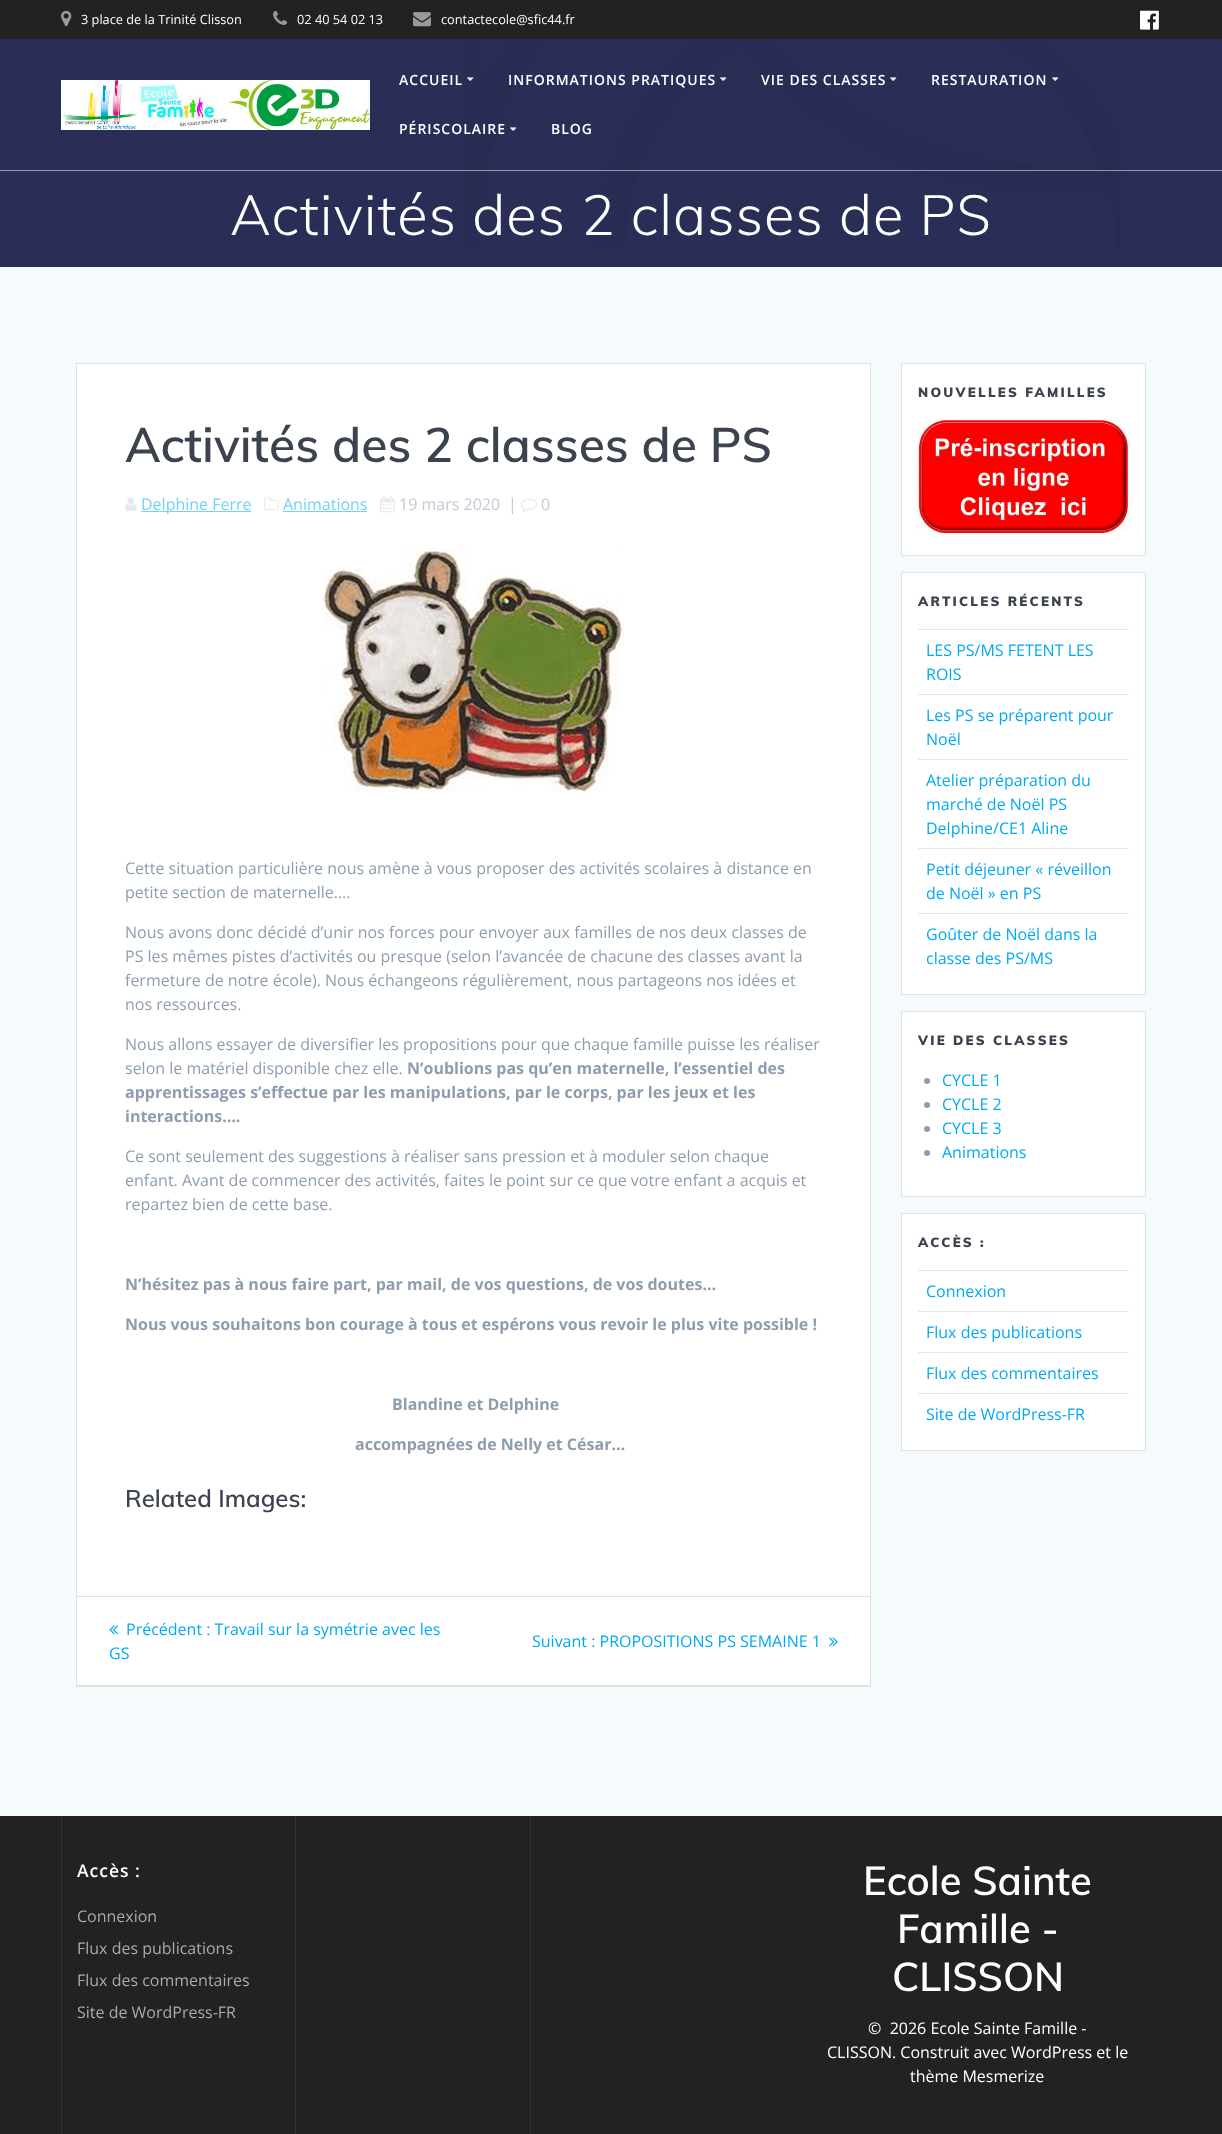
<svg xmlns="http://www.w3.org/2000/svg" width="1222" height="2134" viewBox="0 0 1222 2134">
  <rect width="100%" height="100%" fill="rgb(42,46,87)"/>
  <rect x="0" y="0" width="1222" height="39" fill="rgb(34,34,34)"/>
  <image x="61" y="10" width="11" height="17" href="pic1.png"/>
  <text x="81" y="24" font-family="Open Sans" font-size="12.75" fill="rgb(255,255,255)">3 place de la Trinité Clisson</text>
  <image x="273" y="10" width="15" height="15" href="pic2.png"/>
  <text x="297" y="24" font-family="Open Sans" font-size="12.75" fill="rgb(255,255,255)">02 40 54 02 13</text>
  <image x="413" y="12" width="18" height="15" href="pic3.png"/>
  <text x="441" y="24" font-family="Open Sans" font-size="12.75" fill="rgb(255,255,255)">contactecole@sfic44.fr</text>
  <image x="1140" y="10" width="19" height="20" href="pic4.png"/>
  <image x="463" y="39" width="659" height="211" href="pic9.png"/>
  <rect x="0" y="170" width="1222" height="1" fill="rgba(255,255,255,0.5)"/>
  <image x="61" y="80" width="309" height="50" href="pic5.png"/>
  <text x="399" y="85" font-family="Open Sans" font-size="14" font-weight="600" letter-spacing="1" fill="rgb(255,255,255)">ACCUEIL</text>
  <image x="467" y="77" width="7" height="4" href="pic6.png"/>
  <text x="508" y="85" font-family="Open Sans" font-size="14" font-weight="600" letter-spacing="1" fill="rgb(255,255,255)">INFORMATIONS PRATIQUES</text>
  <image x="720" y="77" width="7" height="4" href="pic7.png"/>
  <text x="761" y="85" font-family="Open Sans" font-size="14" font-weight="600" letter-spacing="1" fill="rgb(255,255,255)">VIE DES CLASSES</text>
  <image x="890" y="77" width="7" height="4" href="pic7.png"/>
  <text x="931" y="85" font-family="Open Sans" font-size="14" font-weight="600" letter-spacing="1" fill="rgb(255,255,255)">RESTAURATION</text>
  <image x="1052" y="77" width="7" height="4" href="pic8.png"/>
  <text x="399" y="134" font-family="Open Sans" font-size="14" font-weight="600" letter-spacing="1" fill="rgb(255,255,255)">PÉRISCOLAIRE</text>
  <image x="510" y="127" width="7" height="4" href="pic7.png"/>
  <text x="551" y="134" font-family="Open Sans" font-size="14" font-weight="600" letter-spacing="1" fill="rgb(255,255,255)">BLOG</text>
  <text x="230" y="235" font-family="Muli" font-size="56" font-weight="300" letter-spacing="0.9" fill="rgb(255,255,255)">Activités des 2 classes de PS</text>
  <rect x="0" y="267" width="1222" height="1549" fill="rgb(245,250,253)"/>
  <rect x="77" y="364" width="793" height="1321" fill="rgb(255,255,255)"/>
  <rect x="76.5" y="363.5" width="794" height="1323" fill="none" stroke="rgb(224,225,225)"/>
  <text x="125" y="462" font-family="Muli" font-size="48" font-weight="600" fill="rgb(60,66,79)">Activités des 2 classes de PS</text>
  <image x="125" y="497" width="12" height="14" href="pic10.png"/>
  <rect x="141" y="511" width="110" height="1" fill="rgb(116,208,249)"/>
  <text x="141" y="510" font-family="Open Sans" font-size="16" fill="rgb(116,208,249)">Delphine Ferre</text>
  <image x="264" y="497" width="15" height="13" href="pic11.png"/>
  <text x="283" y="510" font-family="Open Sans" font-size="16" fill="rgb(116,208,249)">Animations</text>
  <rect x="283" y="511" width="84" height="1" fill="rgb(116,208,249)"/>
  <image x="380" y="496" width="15" height="17" href="pic12.png"/>
  <g font-family="Open Sans" font-size="16" fill="rgb(193,201,210)">
    <text x="399" y="510">19 mars 2020</text>
    <text x="508" y="510">|</text>
  </g>
  <image x="521" y="498" width="16" height="15" href="pic13.png"/>
  <text x="541" y="510" font-family="Open Sans" font-size="16" fill="rgb(193,201,210)">0</text>
  <image x="324" y="548" width="300" height="244" href="pic14.png"/>
  <g font-family="Open Sans" font-size="16" fill="rgb(142,157,174)">
    <text>
      <tspan x="125" y="874">Cette situation particulière nous amène à vous proposer des activités scolaires à distance en</tspan>
      <tspan x="125" y="898">petite section de maternelle….</tspan>
    </text>
    <text>
      <tspan x="125" y="938">Nous avons donc décidé d’unir nos forces pour envoyer aux familles de nos deux classes de</tspan>
      <tspan x="125" y="962">PS les mêmes pistes d’activités ou presque (selon l’avancée de chacune des classes avant la</tspan>
      <tspan x="125" y="986">fermeture de notre école). Nous échangeons régulièrement, nous partageons nos idées et</tspan>
      <tspan x="125" y="1010">nos ressources.</tspan>
    </text>
    <text>
      <tspan x="125" y="1050">Nous allons essayer de diversifier les propositions pour que chaque famille puisse les réaliser</tspan>
      <tspan x="125" y="1074">selon le matériel disponible chez elle.</tspan>
    </text>
  </g>
  <g font-family="Open Sans" font-size="16" font-weight="bold" fill="rgb(142,157,174)">
    <text x="407" y="1074">N’oublions pas qu’en maternelle, l’essentiel des</text>
    <text>
      <tspan x="125" y="1098">apprentissages s’effectue par les manipulations, par le corps, par les jeux et les</tspan>
      <tspan x="125" y="1122">interactions….</tspan>
    </text>
  </g>
  <g font-family="Open Sans" font-size="16" fill="rgb(142,157,174)">
    <text>
      <tspan x="125" y="1162">Ce sont seulement des suggestions à réaliser sans pression et à moduler selon chaque</tspan>
      <tspan x="125" y="1186">enfant. Avant de commencer des activités, faites le point sur ce que votre enfant a acquis et</tspan>
      <tspan x="125" y="1210">repartez bien de cette base.</tspan>
    </text>
  </g>
  <g font-family="Open Sans" font-size="16" font-weight="bold" fill="rgb(142,157,174)">
    <text x="125" y="1290">N’hésitez pas à nous faire part, par mail, de vos questions, de vos doutes…</text>
    <text x="125" y="1330">Nous vous souhaitons bon courage à tous et espérons vous revoir le plus vite possible !</text>
    <text x="392" y="1410">Blandine et Delphine</text>
    <text x="355" y="1450">accompagnées de Nelly et César…</text>
  </g>
  <text x="125" y="1507" font-family="Muli" font-size="24" font-weight="600" fill="rgb(60,66,79)">Related Images:</text>
  <rect x="77" y="1596" width="793" height="1" fill="rgb(224,225,225)"/>
  <rect x="77" y="1685" width="793" height="1" fill="rgb(224,225,225)"/>
  <image x="109" y="1625" width="9" height="10" href="pic15.png"/>
  <g font-family="Open Sans" font-size="16" fill="rgb(3,169,244)">
    <text x="126" y="1635">Précédent : Travail sur la symétrie avec les</text>
    <text x="109" y="1659">GS</text>
    <text x="532" y="1647">Suivant : PROPOSITIONS PS SEMAINE 1</text>
  </g>
  <image x="829" y="1637" width="9" height="10" href="pic16.png"/>
  <rect x="901.5" y="363.5" width="244" height="192" fill="rgb(255,255,255)" stroke="rgb(224,225,225)"/>
  <text x="918" y="397" font-family="Muli" font-size="13.25" font-weight="900" letter-spacing="2.25" fill="rgb(60,66,79)">NOUVELLES FAMILLES</text>
  <image x="918" y="420" width="211" height="113" href="pic17.png"/>
  <rect x="901.5" y="572.5" width="244" height="422" fill="rgb(255,255,255)" stroke="rgb(224,225,225)"/>
  <text x="918" y="606" font-family="Muli" font-size="13.25" font-weight="900" letter-spacing="2.25" fill="rgb(60,66,79)">ARTICLES RÉCENTS</text>
  <rect x="918" y="629" width="211" height="1" fill="rgb(230,230,230)"/>
  <g font-family="Open Sans" font-size="16" fill="rgb(3,169,244)">
    <text>
      <tspan x="926" y="656">LES PS/MS FETENT LES</tspan>
      <tspan x="926" y="680">ROIS</tspan>
    </text>
  </g>
  <rect x="918" y="694" width="211" height="1" fill="rgb(230,230,230)"/>
  <g font-family="Open Sans" font-size="16" fill="rgb(3,169,244)">
    <text>
      <tspan x="926" y="721">Les PS se préparent pour</tspan>
      <tspan x="926" y="745">Noël</tspan>
    </text>
  </g>
  <rect x="918" y="759" width="211" height="1" fill="rgb(230,230,230)"/>
  <g font-family="Open Sans" font-size="16" fill="rgb(3,169,244)">
    <text>
      <tspan x="926" y="786">Atelier préparation du</tspan>
      <tspan x="926" y="810">marché de Noël PS</tspan>
      <tspan x="926" y="834">Delphine/CE1 Aline</tspan>
    </text>
  </g>
  <rect x="918" y="848" width="211" height="1" fill="rgb(230,230,230)"/>
  <g font-family="Open Sans" font-size="16" fill="rgb(3,169,244)">
    <text>
      <tspan x="926" y="875">Petit déjeuner « réveillon</tspan>
      <tspan x="926" y="899">de Noël » en PS</tspan>
    </text>
  </g>
  <rect x="918" y="913" width="211" height="1" fill="rgb(230,230,230)"/>
  <g font-family="Open Sans" font-size="16" fill="rgb(3,169,244)">
    <text>
      <tspan x="926" y="940">Goûter de Noël dans la</tspan>
      <tspan x="926" y="964">classe des PS/MS</tspan>
    </text>
  </g>
  <rect x="901.5" y="1011.5" width="244" height="185" fill="rgb(255,255,255)" stroke="rgb(224,225,225)"/>
  <text x="918" y="1045" font-family="Muli" font-size="13.25" font-weight="900" letter-spacing="2.25" fill="rgb(60,66,79)">VIE DES CLASSES</text>
  <circle cx="927" cy="1081" r="3" fill="rgb(142,157,174)"/>
  <text x="942" y="1086" font-family="Open Sans" font-size="16" fill="rgb(3,169,244)">CYCLE 1</text>
  <circle cx="927" cy="1105" r="3" fill="rgb(142,157,174)"/>
  <text x="942" y="1110" font-family="Open Sans" font-size="16" fill="rgb(3,169,244)">CYCLE 2</text>
  <circle cx="927" cy="1129" r="3" fill="rgb(142,157,174)"/>
  <text x="942" y="1134" font-family="Open Sans" font-size="16" fill="rgb(3,169,244)">CYCLE 3</text>
  <circle cx="927" cy="1153" r="3" fill="rgb(142,157,174)"/>
  <text x="942" y="1158" font-family="Open Sans" font-size="16" fill="rgb(3,169,244)">Animations</text>
  <rect x="901.5" y="1213.5" width="244" height="237" fill="rgb(255,255,255)" stroke="rgb(224,225,225)"/>
  <text x="918" y="1247" font-family="Muli" font-size="13.25" font-weight="900" letter-spacing="2.25" fill="rgb(60,66,79)">ACCÈS :</text>
  <rect x="918" y="1270" width="211" height="1" fill="rgb(230,230,230)"/>
  <text x="926" y="1297" font-family="Open Sans" font-size="16" fill="rgb(3,169,244)">Connexion</text>
  <rect x="918" y="1311" width="211" height="1" fill="rgb(230,230,230)"/>
  <text x="926" y="1338" font-family="Open Sans" font-size="16" fill="rgb(3,169,244)">Flux des publications</text>
  <rect x="918" y="1352" width="211" height="1" fill="rgb(230,230,230)"/>
  <text x="926" y="1379" font-family="Open Sans" font-size="16" fill="rgb(3,169,244)">Flux des commentaires</text>
  <rect x="918" y="1393" width="211" height="1" fill="rgb(230,230,230)"/>
  <text x="926" y="1420" font-family="Open Sans" font-size="16" fill="rgb(3,169,244)">Site de WordPress-FR</text>
  <rect x="0" y="1816" width="1222" height="318" fill="rgb(34,34,34)"/>
  <rect x="61" y="1816" width="1" height="318" fill="rgb(53,53,53)"/>
  <text x="77" y="1877" font-family="Open Sans" font-size="17.5" font-weight="600" letter-spacing="1" fill="rgb(255,255,255)">Accès :</text>
  <g font-family="Open Sans" font-size="16" fill="rgb(170,170,170)">
    <text x="77" y="1922">Connexion</text>
    <text x="77" y="1954">Flux des publications</text>
    <text x="77" y="1986">Flux des commentaires</text>
    <text x="77" y="2018">Site de WordPress-FR</text>
  </g>
  <rect x="295" y="1816" width="1" height="318" fill="rgb(53,53,53)"/>
  <rect x="530" y="1816" width="1" height="318" fill="rgb(53,53,53)"/>
  <g font-family="Muli" font-size="40" font-weight="600" fill="rgb(255,255,255)">
    <text x="863" y="1895">Ecole Sainte</text>
    <text x="897" y="1943">Famille -</text>
    <text x="892" y="1991">CLISSON</text>
  </g>
  <g font-family="Open Sans" font-size="16" fill="rgb(255,255,255)">
    <text x="868" y="2034" xml:space="preserve">©  2026 Ecole Sainte Famille -</text>
    <text x="827" y="2058">CLISSON. Construit avec WordPress et le</text>
    <text x="910" y="2082">thème Mesmerize</text>
  </g>
</svg>
